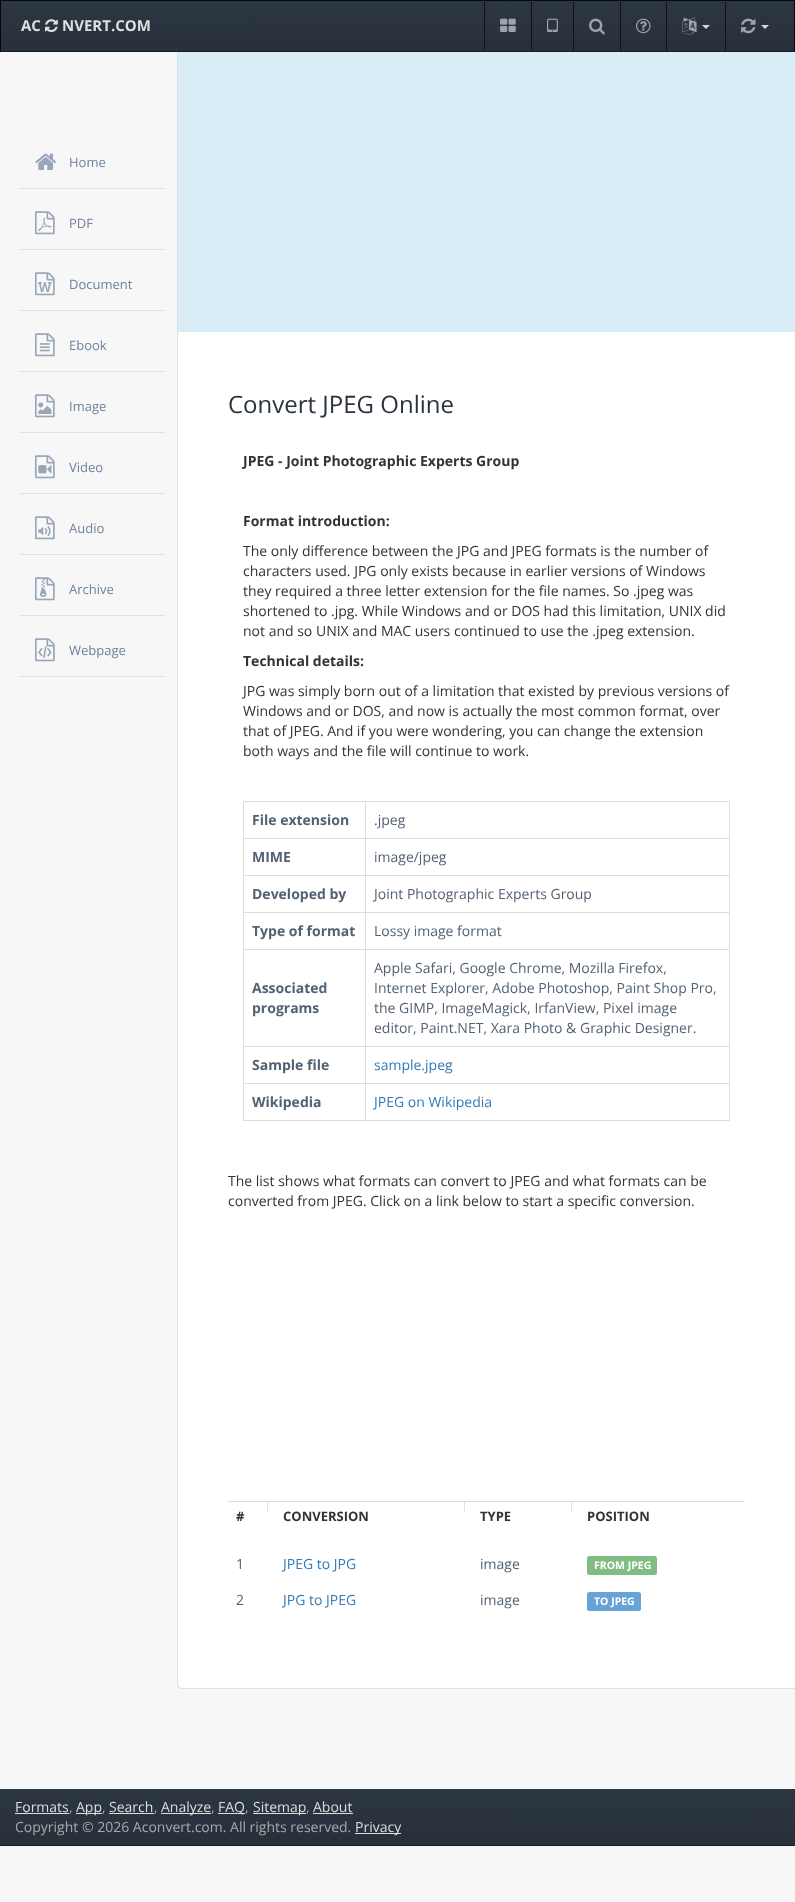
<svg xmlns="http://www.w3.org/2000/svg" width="795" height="1902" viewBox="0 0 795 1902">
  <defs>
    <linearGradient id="g1" gradientUnits="userSpaceOnUse" x1="398" y1="1" x2="398" y2="51"><stop offset="0" stop-color="rgb(44,55,66)"/><stop offset="1" stop-color="rgb(40,48,58)"/></linearGradient>
    <linearGradient id="g2" gradientUnits="userSpaceOnUse" x1="398" y1="1789" x2="398" y2="1845"><stop offset="0" stop-color="rgb(44,55,66)"/><stop offset="1" stop-color="rgb(40,48,58)"/></linearGradient>
  </defs>
  <rect width="100%" height="100%" fill="rgb(247,247,247)"/>
  <rect x="1" y="1" width="793" height="50" fill="url(#g1)"/>
  <rect x="0" y="0" width="795" height="1" fill="rgb(8,8,8)"/>
  <rect x="794" y="0" width="1" height="52" fill="rgb(8,8,8)"/>
  <rect x="0" y="51" width="795" height="1" fill="rgb(25,30,35)"/>
  <rect x="0" y="0" width="1" height="52" fill="rgb(8,8,8)"/>
  <text x="21" y="31" font-family="Open Sans" font-size="15" font-weight="bold" fill="rgb(223,223,223)">AC</text>
  <image x="45" y="19" width="13" height="14" href="pic1.png"/>
  <text x="62" y="31" font-family="Open Sans" font-size="15" font-weight="bold" fill="rgb(223,223,223)">NVERT.COM</text>
  <rect x="484" y="2" width="1" height="49" fill="rgb(16,20,23)"/>
  <image x="500" y="18" width="16" height="14" href="pic2.png"/>
  <rect x="531" y="2" width="1" height="49" fill="rgb(16,20,23)"/>
  <image x="547" y="18" width="11" height="14" href="pic3.png"/>
  <rect x="573" y="2" width="1" height="49" fill="rgb(16,20,23)"/>
  <image x="589" y="18" width="16" height="17" href="pic4.png"/>
  <rect x="620" y="2" width="1" height="49" fill="rgb(16,20,23)"/>
  <image x="636" y="18" width="15" height="16" href="pic5.png"/>
  <rect x="666" y="2" width="1" height="49" fill="rgb(16,20,23)"/>
  <image x="682" y="17" width="15" height="18" href="pic6.png"/>
  <path d="M702 25H710L706 29Z" fill="rgb(214,214,214)"/>
  <rect x="725" y="2" width="1" height="49" fill="rgb(16,20,23)"/>
  <image x="741" y="18" width="15" height="16" href="pic7.png"/>
  <path d="M761 25H769L765 29Z" fill="rgb(214,214,214)"/>
  <rect x="20" y="188" width="145" height="1" fill="rgb(218,225,232)"/>
  <image x="35" y="153" width="21" height="17" href="pic8.png"/>
  <text x="69" y="167" font-family="Open Sans" font-size="13" fill="rgb(110,130,155)">Home</text>
  <rect x="20" y="249" width="145" height="1" fill="rgb(218,225,232)"/>
  <image x="35" y="211" width="20" height="24" href="pic9.png"/>
  <text x="69" y="228" font-family="Open Sans" font-size="13" fill="rgb(110,130,155)">PDF</text>
  <rect x="20" y="310" width="145" height="1" fill="rgb(218,225,232)"/>
  <image x="35" y="272" width="20" height="24" href="pic10.png"/>
  <text x="69" y="289" font-family="Open Sans" font-size="13" fill="rgb(110,130,155)">Document</text>
  <rect x="20" y="371" width="145" height="1" fill="rgb(218,225,232)"/>
  <image x="35" y="333" width="20" height="24" href="pic11.png"/>
  <text x="69" y="350" font-family="Open Sans" font-size="13" fill="rgb(110,130,155)">Ebook</text>
  <rect x="20" y="432" width="145" height="1" fill="rgb(218,225,232)"/>
  <image x="35" y="394" width="20" height="24" href="pic12.png"/>
  <text x="69" y="411" font-family="Open Sans" font-size="13" fill="rgb(110,130,155)">Image</text>
  <rect x="20" y="493" width="145" height="1" fill="rgb(218,225,232)"/>
  <image x="35" y="455" width="20" height="24" href="pic13.png"/>
  <text x="69" y="472" font-family="Open Sans" font-size="13" fill="rgb(110,130,155)">Video</text>
  <rect x="20" y="554" width="145" height="1" fill="rgb(218,225,232)"/>
  <image x="35" y="516" width="20" height="24" href="pic14.png"/>
  <text x="69" y="533" font-family="Open Sans" font-size="13" fill="rgb(110,130,155)">Audio</text>
  <rect x="20" y="615" width="145" height="1" fill="rgb(218,225,232)"/>
  <image x="35" y="577" width="20" height="24" href="pic15.png"/>
  <text x="69" y="594" font-family="Open Sans" font-size="13" fill="rgb(110,130,155)">Archive</text>
  <rect x="20" y="676" width="145" height="1" fill="rgb(218,225,232)"/>
  <image x="35" y="638" width="20" height="24" href="pic16.png"/>
  <text x="69" y="655" font-family="Open Sans" font-size="13" fill="rgb(110,130,155)">Webpage</text>
  <path d="M177 52H795V1689H182C179 1689 177 1687 177 1684Z" fill="rgb(255,255,255)"/>
  <path d="M177 52H795V1689H182C179 1689 177 1687 177 1684ZM178 52H795V1688H182C180 1688 178 1686 178 1684Z" fill="rgb(218,227,233)" fill-rule="evenodd"/>
  <rect x="178" y="52" width="617" height="280" fill="rgb(217,237,247)"/>
  <text x="228" y="413" font-family="Open Sans" font-size="24" fill="rgb(41,50,61)">Convert JPEG Online</text>
  <g font-family="Open Sans" font-size="14" font-weight="bold" fill="rgb(51,51,51)">
    <text x="243" y="466">JPEG - Joint Photographic Experts Group</text>
    <text x="243" y="526">Format introduction:</text>
  </g>
  <g font-family="Open Sans" font-size="14" fill="rgb(51,51,51)">
    <text>
      <tspan x="243" y="556">The only difference between the JPG and JPEG formats is the number of</tspan>
      <tspan x="243" y="576">characters used. JPG only exists because in earlier versions of Windows</tspan>
      <tspan x="243" y="596">they required a three letter extension for the file names. So .jpeg was</tspan>
      <tspan x="243" y="616">shortened to .jpg. While Windows and or DOS had this limitation, UNIX did</tspan>
      <tspan x="243" y="636">not and so UNIX and MAC users continued to use the .jpeg extension.</tspan>
    </text>
  </g>
  <text x="243" y="666" font-family="Open Sans" font-size="14" font-weight="bold" fill="rgb(51,51,51)">Technical details:</text>
  <g font-family="Open Sans" font-size="14" fill="rgb(51,51,51)">
    <text>
      <tspan x="243" y="696">JPG was simply born out of a limitation that existed by previous versions of</tspan>
      <tspan x="243" y="716">Windows and or DOS, and now is actually the most common format, over</tspan>
      <tspan x="243" y="736">that of JPEG. And if you were wondering, you can change the extension</tspan>
      <tspan x="243" y="756">both ways and the file will continue to work.</tspan>
    </text>
  </g>
  <rect x="365" y="801" width="365" height="1" fill="rgb(221,221,221)"/>
  <rect x="365" y="838" width="365" height="1" fill="rgb(221,221,221)"/>
  <rect x="365" y="875" width="365" height="1" fill="rgb(221,221,221)"/>
  <rect x="365" y="912" width="365" height="1" fill="rgb(221,221,221)"/>
  <rect x="365" y="949" width="365" height="1" fill="rgb(221,221,221)"/>
  <rect x="365" y="1046" width="365" height="1" fill="rgb(221,221,221)"/>
  <rect x="365" y="1083" width="365" height="1" fill="rgb(221,221,221)"/>
  <rect x="729" y="1083" width="1" height="38" fill="rgb(221,221,221)"/>
  <rect x="365" y="1120" width="365" height="1" fill="rgb(221,221,221)"/>
  <rect x="365" y="1083" width="1" height="38" fill="rgb(221,221,221)"/>
  <rect x="243" y="1083" width="123" height="1" fill="rgb(221,221,221)"/>
  <rect x="365" y="1046" width="1" height="38" fill="rgb(221,221,221)"/>
  <rect x="243" y="1046" width="123" height="1" fill="rgb(221,221,221)"/>
  <rect x="365" y="949" width="1" height="98" fill="rgb(221,221,221)"/>
  <rect x="243" y="949" width="123" height="1" fill="rgb(221,221,221)"/>
  <rect x="365" y="912" width="1" height="38" fill="rgb(221,221,221)"/>
  <rect x="243" y="912" width="123" height="1" fill="rgb(221,221,221)"/>
  <rect x="365" y="875" width="1" height="38" fill="rgb(221,221,221)"/>
  <rect x="243" y="875" width="123" height="1" fill="rgb(221,221,221)"/>
  <rect x="365" y="838" width="1" height="38" fill="rgb(221,221,221)"/>
  <rect x="243" y="838" width="123" height="1" fill="rgb(221,221,221)"/>
  <rect x="365" y="801" width="1" height="38" fill="rgb(221,221,221)"/>
  <rect x="243" y="801" width="123" height="1" fill="rgb(221,221,221)"/>
  <rect x="243" y="1120" width="123" height="1" fill="rgb(221,221,221)"/>
  <rect x="243" y="1083" width="1" height="38" fill="rgb(221,221,221)"/>
  <rect x="243" y="1046" width="1" height="38" fill="rgb(221,221,221)"/>
  <rect x="243" y="949" width="1" height="98" fill="rgb(221,221,221)"/>
  <rect x="243" y="912" width="1" height="38" fill="rgb(221,221,221)"/>
  <rect x="243" y="875" width="1" height="38" fill="rgb(221,221,221)"/>
  <rect x="243" y="838" width="1" height="38" fill="rgb(221,221,221)"/>
  <rect x="243" y="801" width="1" height="38" fill="rgb(221,221,221)"/>
  <text x="252" y="825" font-family="Open Sans" font-size="14" font-weight="bold" fill="rgb(82,98,115)">File extension</text>
  <rect x="729" y="1046" width="1" height="38" fill="rgb(221,221,221)"/>
  <rect x="729" y="949" width="1" height="98" fill="rgb(221,221,221)"/>
  <rect x="729" y="912" width="1" height="38" fill="rgb(221,221,221)"/>
  <rect x="729" y="875" width="1" height="38" fill="rgb(221,221,221)"/>
  <rect x="729" y="838" width="1" height="38" fill="rgb(221,221,221)"/>
  <rect x="729" y="801" width="1" height="38" fill="rgb(221,221,221)"/>
  <text x="374" y="825" font-family="Open Sans" font-size="14" fill="rgb(82,98,115)">.jpeg</text>
  <text x="252" y="862" font-family="Open Sans" font-size="14" font-weight="bold" fill="rgb(82,98,115)">MIME</text>
  <text x="374" y="862" font-family="Open Sans" font-size="14" fill="rgb(82,98,115)">image/jpeg</text>
  <text x="252" y="899" font-family="Open Sans" font-size="14" font-weight="bold" fill="rgb(82,98,115)">Developed by</text>
  <text x="374" y="899" font-family="Open Sans" font-size="14" fill="rgb(82,98,115)">Joint Photographic Experts Group</text>
  <text x="252" y="936" font-family="Open Sans" font-size="14" font-weight="bold" fill="rgb(82,98,115)">Type of format</text>
  <text x="374" y="936" font-family="Open Sans" font-size="14" fill="rgb(82,98,115)">Lossy image format</text>
  <g font-family="Open Sans" font-size="14" font-weight="bold" fill="rgb(82,98,115)">
    <text>
      <tspan x="252" y="993">Associated</tspan>
      <tspan x="252" y="1013">programs</tspan>
    </text>
  </g>
  <g font-family="Open Sans" font-size="14" fill="rgb(82,98,115)">
    <text>
      <tspan x="374" y="973">Apple Safari, Google Chrome, Mozilla Firefox,</tspan>
      <tspan x="374" y="993">Internet Explorer, Adobe Photoshop, Paint Shop Pro,</tspan>
      <tspan x="374" y="1013">the GIMP, ImageMagick, IrfanView, Pixel image</tspan>
      <tspan x="374" y="1033">editor, Paint.NET, Xara Photo &amp; Graphic Designer.</tspan>
    </text>
  </g>
  <text x="252" y="1070" font-family="Open Sans" font-size="14" font-weight="bold" fill="rgb(82,98,115)">Sample file</text>
  <text x="374" y="1070" font-family="Open Sans" font-size="14" fill="rgb(51,122,183)">sample.jpeg</text>
  <text x="252" y="1107" font-family="Open Sans" font-size="14" font-weight="bold" fill="rgb(82,98,115)">Wikipedia</text>
  <text x="374" y="1107" font-family="Open Sans" font-size="14" fill="rgb(51,122,183)">JPEG on Wikipedia</text>
  <g font-family="Open Sans" font-size="14" fill="rgb(51,51,51)">
    <text>
      <tspan x="228" y="1186">The list shows what formats can convert to JPEG and what formats can be</tspan>
      <tspan x="228" y="1206">converted from JPEG. Click on a link below to start a specific conversion.</tspan>
    </text>
  </g>
  <text x="236" y="1521" font-family="Open Sans" font-size="13" font-weight="bold" fill="rgb(51,51,51)">#</text>
  <rect x="267" y="1502" width="1" height="10" fill="rgb(222,227,234)"/>
  <text x="283" y="1521" font-family="Open Sans" font-size="13" font-weight="bold" fill="rgb(51,51,51)">CONVERSION</text>
  <rect x="464" y="1502" width="1" height="10" fill="rgb(222,227,234)"/>
  <text x="480" y="1521" font-family="Open Sans" font-size="13" font-weight="bold" fill="rgb(51,51,51)">TYPE</text>
  <rect x="228" y="1501" width="517" height="1" fill="rgb(221,221,221)"/>
  <rect x="571" y="1502" width="1" height="10" fill="rgb(222,227,234)"/>
  <text x="587" y="1521" font-family="Open Sans" font-size="13" font-weight="bold" fill="rgb(51,51,51)">POSITION</text>
  <text x="236" y="1569" font-family="Open Sans" font-size="14" fill="rgb(82,98,115)">1</text>
  <text x="283" y="1569" font-family="Open Sans" font-size="14" fill="rgb(51,122,183)">JPEG to JPG</text>
  <text x="480" y="1569" font-family="Open Sans" font-size="14" fill="rgb(82,98,115)">image</text>
  <rect x="587" y="1556" width="70" height="19" rx="2.5" fill="rgb(129,189,130)"/>
  <text x="594" y="1569" font-family="Open Sans" font-size="10.5" font-weight="bold" fill="rgb(255,255,255)">FROM JPEG</text>
  <text x="236" y="1605" font-family="Open Sans" font-size="14" fill="rgb(82,98,115)">2</text>
  <text x="283" y="1605" font-family="Open Sans" font-size="14" fill="rgb(51,122,183)">JPG to JPEG</text>
  <text x="480" y="1605" font-family="Open Sans" font-size="14" fill="rgb(82,98,115)">image</text>
  <rect x="587" y="1592" width="54" height="19" rx="2.5" fill="rgb(104,163,213)"/>
  <text x="594" y="1605" font-family="Open Sans" font-size="10.5" font-weight="bold" fill="rgb(255,255,255)">TO JPEG</text>
  <rect x="0" y="1789" width="795" height="56" fill="url(#g2)"/>
  <rect x="0" y="1845" width="795" height="1" fill="rgb(25,30,35)"/>
  <text x="15" y="1812" font-family="Open Sans" font-size="14" fill="rgb(223,223,223)">Formats</text>
  <text x="69" y="1812" font-family="Open Sans" font-size="14" fill="rgb(170,170,170)">,</text>
  <rect x="15" y="1813" width="54" height="1" fill="rgb(223,223,223)"/>
  <rect x="76" y="1813" width="26" height="1" fill="rgb(223,223,223)"/>
  <text x="76" y="1812" font-family="Open Sans" font-size="14" fill="rgb(223,223,223)">App</text>
  <text x="102" y="1812" font-family="Open Sans" font-size="14" fill="rgb(170,170,170)">,</text>
  <text x="109" y="1812" font-family="Open Sans" font-size="14" fill="rgb(223,223,223)">Search</text>
  <text x="154" y="1812" font-family="Open Sans" font-size="14" fill="rgb(170,170,170)">,</text>
  <rect x="109" y="1813" width="45" height="1" fill="rgb(223,223,223)"/>
  <rect x="161" y="1813" width="50" height="1" fill="rgb(223,223,223)"/>
  <text x="161" y="1812" font-family="Open Sans" font-size="14" fill="rgb(223,223,223)">Analyze</text>
  <text x="211" y="1812" font-family="Open Sans" font-size="14" fill="rgb(170,170,170)">,</text>
  <rect x="218" y="1813" width="27" height="1" fill="rgb(223,223,223)"/>
  <text x="218" y="1812" font-family="Open Sans" font-size="14" fill="rgb(223,223,223)">FAQ</text>
  <text x="245" y="1812" font-family="Open Sans" font-size="14" fill="rgb(170,170,170)">,</text>
  <rect x="253" y="1813" width="53" height="1" fill="rgb(223,223,223)"/>
  <text x="253" y="1812" font-family="Open Sans" font-size="14" fill="rgb(223,223,223)">Sitemap</text>
  <text x="306" y="1812" font-family="Open Sans" font-size="14" fill="rgb(170,170,170)">,</text>
  <rect x="313" y="1813" width="40" height="1" fill="rgb(223,223,223)"/>
  <text x="313" y="1812" font-family="Open Sans" font-size="14" fill="rgb(223,223,223)">About</text>
  <text x="15" y="1832" font-family="Open Sans" font-size="14" fill="rgb(170,170,170)">Copyright © 2026 Aconvert.com. All rights reserved.</text>
  <rect x="355" y="1833" width="46" height="1" fill="rgb(223,223,223)"/>
  <text x="355" y="1832" font-family="Open Sans" font-size="14" fill="rgb(223,223,223)">Privacy</text>
</svg>
